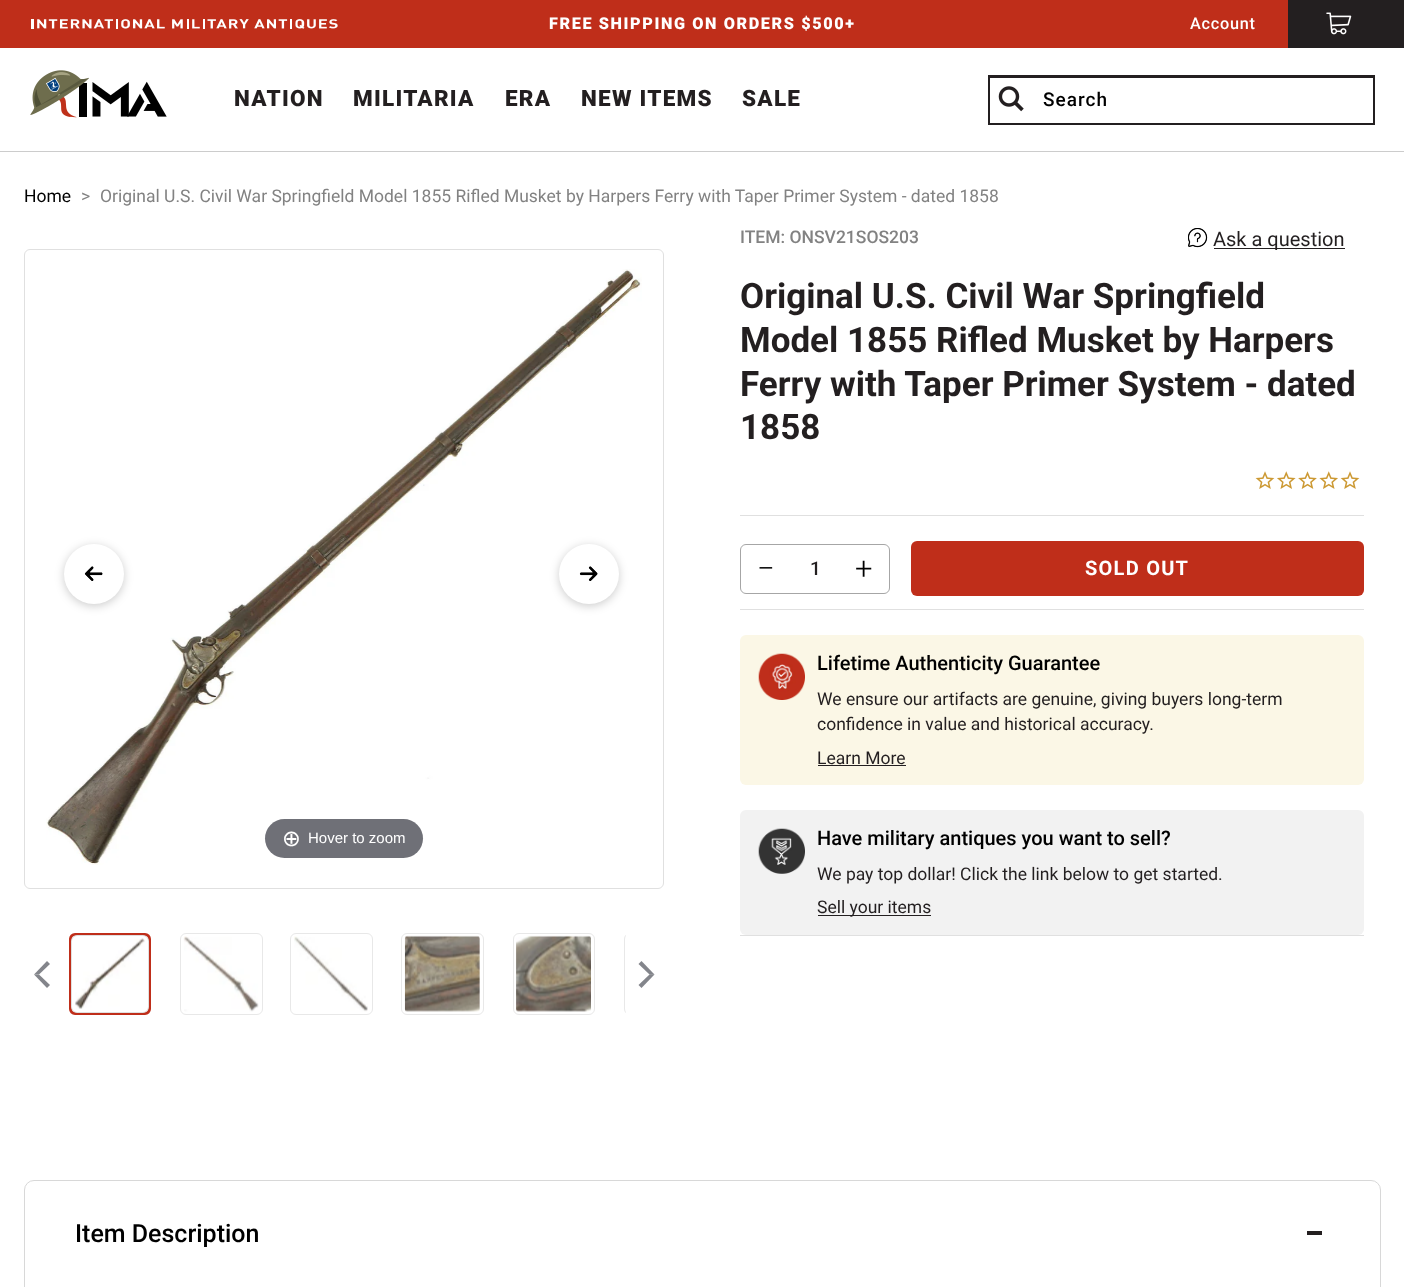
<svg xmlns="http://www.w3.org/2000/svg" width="1404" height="1287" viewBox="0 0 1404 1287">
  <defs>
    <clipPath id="clip1"><rect x="618" y="933" width="8" height="82"/></clipPath>
  </defs>
  <rect width="100%" height="100%" fill="rgb(255,255,255)"/>
  <rect x="0" y="151" width="1404" height="1" fill="rgb(204,204,204)"/>
  <rect x="0" y="0" width="1288" height="48" fill="rgb(191,46,26)"/>
  <image x="31" y="19" width="307" height="10" href="pic1.png"/>
  <text x="549" y="29" font-family="Roboto" font-size="16.25" font-weight="900" letter-spacing="1.6" fill="rgb(255,255,255)">FREE SHIPPING ON ORDERS $500+</text>
  <text x="1190" y="29" font-family="Roboto" font-size="16.25" font-weight="500" letter-spacing="0.75" fill="rgb(255,255,255)">Account</text>
  <rect x="1288" y="0" width="116" height="48" fill="rgb(35,31,32)"/>
  <image x="1326" y="12" width="26" height="23" href="pic2.png"/>
  <image x="30" y="70" width="137" height="48" href="pic3.png"/>
  <g font-family="Roboto" font-size="22.5" font-weight="900" letter-spacing="1.25" fill="rgb(35,31,32)">
    <text x="234" y="106">NATION</text>
    <text x="353" y="106">MILITARIA</text>
    <text x="505" y="106">ERA</text>
    <text x="581" y="106">NEW ITEMS</text>
    <text x="742" y="106">SALE</text>
  </g>
  <rect x="989.5" y="76.5" width="384" height="47" fill="none" stroke="rgb(35,31,32)" stroke-width="3"/>
  <rect x="990" y="78" width="383" height="45" fill="rgb(255,255,255)"/>
  <image x="998" y="86" width="26" height="26" href="pic4.png"/>
  <text x="1043" y="106" font-family="Roboto" font-size="19" font-weight="500" letter-spacing="1" fill="rgb(0,0,0)">Search</text>
  <text x="24" y="202" font-family="Roboto" font-size="17.5" fill="rgb(0,0,0)">Home</text>
  <g font-family="Roboto" font-size="17.5" fill="rgb(130,130,130)">
    <text x="81" y="202">&gt;</text>
    <text x="100" y="202">Original U.S. Civil War Springfield Model 1855 Rifled Musket by Harpers Ferry with Taper Primer System - dated 1858</text>
  </g>
  <rect x="24.5" y="249.5" width="639" height="639" rx="5.5" fill="none" stroke="rgb(224,224,224)"/>
  <image x="46" y="269" width="596" height="596" href="pic7.png"/>
  <rect x="64" y="546" width="60" height="60" rx="30" fill="rgba(0,0,0,0.2)" filter="blur(5px)"/>
  <circle cx="94" cy="574" r="30" fill="rgb(255,255,255)"/>
  <image x="84" y="566" width="19" height="15" href="pic5.png"/>
  <rect x="559" y="546" width="60" height="60" rx="30" fill="rgba(0,0,0,0.2)" filter="blur(5px)"/>
  <circle cx="589" cy="574" r="30" fill="rgb(255,255,255)"/>
  <image x="579" y="566" width="19" height="15" href="pic6.png"/>
  <rect x="265" y="819" width="158" height="39" rx="19.5" fill="rgb(111,112,119)"/>
  <text x="282" y="846" font-family="DejaVu Sans" font-size="22.5" fill="rgb(255,255,255)">⊕</text>
  <text x="308" y="843" font-family="Liberation Sans" font-size="15" fill="rgb(255,255,255)">Hover to zoom</text>
  <path d="M34 974.5L47 961L50 964L39 974.5Z" fill="rgb(131,133,139)"/>
  <path d="M47 988L34 974.5H39L50 985Z" fill="rgb(131,133,139)"/>
  <rect x="70.5" y="934.5" width="79" height="79" rx="4.5" fill="none" stroke="rgb(191,46,26)" stroke-width="3"/>
  <rect x="71.5" y="935.5" width="77" height="77" rx="5.5" fill="none" stroke="rgb(224,224,224)"/>
  <image x="75" y="938" width="70" height="71" href="pic8.png"/>
  <rect x="180.5" y="933.5" width="82" height="81" rx="5.5" fill="none" stroke="rgb(232,232,232)"/>
  <image x="183" y="936" width="76" height="76" href="pic9.png"/>
  <rect x="290.5" y="933.5" width="82" height="81" rx="5.5" fill="none" stroke="rgb(232,232,232)"/>
  <image x="294" y="936" width="74" height="76" href="pic10.png"/>
  <rect x="401.5" y="933.5" width="82" height="81" rx="5.5" fill="none" stroke="rgb(232,232,232)"/>
  <image x="404" y="935" width="76" height="77" href="pic11.png"/>
  <rect x="513.5" y="933.5" width="81" height="81" rx="5.5" fill="none" stroke="rgb(232,232,232)"/>
  <image x="516" y="935" width="75" height="77" href="pic12.png"/>
  <g clip-path="url(#clip1)">
    <rect x="624.5" y="933.5" width="81" height="81" rx="5.5" fill="none" stroke="rgb(232,232,232)"/>
  </g>
  <path d="M654.5 974.5L641.5 988L638.5 985L649.5 974.5Z" fill="rgb(131,133,139)"/>
  <path d="M641.5 961L654.5 974.5H649.5L638.5 964Z" fill="rgba(49,51,61,0.6)"/>
  <text x="740" y="243" font-family="Roboto" font-size="17.5" font-weight="500" fill="rgb(130,130,130)">ITEM: ONSV21SOS203</text>
  <image x="1188" y="228" width="20" height="20" href="pic13.png"/>
  <rect x="1214" y="248" width="131" height="1" fill="rgb(35,31,32)"/>
  <text x="1213" y="246" font-family="Roboto" font-size="20" fill="rgb(35,31,32)">Ask a question</text>
  <g font-family="Roboto" font-size="35" font-weight="bold" fill="rgb(35,31,32)">
    <text>
      <tspan x="740" y="308">Original U.S. Civil War Springfield</tspan>
      <tspan x="740" y="352">Model 1855 Rifled Musket by Harpers</tspan>
      <tspan x="740" y="396">Ferry with Taper Primer System - dated</tspan>
      <tspan x="740" y="439">1858</tspan>
    </text>
  </g>
  <image x="1255" y="471" width="20" height="18" href="pic14.png"/>
  <image x="1277" y="471" width="19" height="18" href="pic15.png"/>
  <image x="1298" y="471" width="19" height="18" href="pic16.png"/>
  <image x="1319" y="471" width="19" height="18" href="pic17.png"/>
  <image x="1340" y="471" width="20" height="18" href="pic14.png"/>
  <rect x="740" y="515" width="624" height="1" fill="rgb(224,224,224)"/>
  <rect x="740" y="609" width="624" height="1" fill="rgb(224,224,224)"/>
  <rect x="740.5" y="544.5" width="149" height="49" rx="5.5" fill="none" stroke="rgb(166,166,166)"/>
  <text x="757" y="579" font-family="Roboto" font-size="31" font-weight="300" fill="rgb(0,0,0)">−</text>
  <text x="810" y="575" font-family="Roboto" font-size="19" font-weight="500" fill="rgb(35,31,32)">1</text>
  <text x="855" y="579" font-family="Roboto" font-size="31" font-weight="300" fill="rgb(0,0,0)">+</text>
  <rect x="911" y="541" width="453" height="55" rx="6" fill="rgb(191,46,26)"/>
  <text x="1085" y="575" font-family="Roboto" font-size="20" font-weight="bold" letter-spacing="1.25" fill="rgb(255,255,255)">SOLD OUT</text>
  <rect x="740" y="935" width="624" height="1" fill="rgb(224,224,224)"/>
  <rect x="740" y="635" width="624" height="150" rx="6" fill="rgb(251,247,230)"/>
  <image x="758" y="653" width="47" height="47" href="pic18.png"/>
  <text x="817" y="670" font-family="Roboto" font-size="20" font-weight="500" fill="rgb(0,0,0)">Lifetime Authenticity Guarantee</text>
  <g font-family="Roboto" font-size="17.5" fill="rgb(35,31,32)">
    <text>
      <tspan x="817" y="705">We ensure our artifacts are genuine, giving buyers long-term</tspan>
      <tspan x="817" y="730">confidence in value and historical accuracy.</tspan>
      <tspan x="817" y="764">Learn More</tspan>
    </text>
  </g>
  <rect x="818" y="765" width="88" height="1" fill="rgb(35,31,32)"/>
  <rect x="740" y="810" width="624" height="125" rx="6" fill="rgb(242,242,242)"/>
  <image x="758" y="828" width="47" height="46" href="pic19.png"/>
  <text x="817" y="845" font-family="Roboto" font-size="20" font-weight="500" fill="rgb(0,0,0)">Have military antiques you want to sell?</text>
  <text x="817" y="880" font-family="Roboto" font-size="17.5" fill="rgb(35,31,32)">We pay top dollar! Click the link below to get started.</text>
  <rect x="818" y="915" width="113" height="1" fill="rgb(35,31,32)"/>
  <text x="817" y="913" font-family="Roboto" font-size="17.5" fill="rgb(35,31,32)">Sell your items</text>
  <rect x="24.5" y="1180.5" width="1356" height="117" rx="9.5" fill="none" stroke="rgb(216,216,216)"/>
  <text x="75" y="1242" font-family="Roboto" font-size="25" font-weight="500" fill="rgb(0,0,0)">Item Description</text>
  <rect x="1307" y="1231" width="15" height="4" fill="rgb(35,31,32)"/>
</svg>
